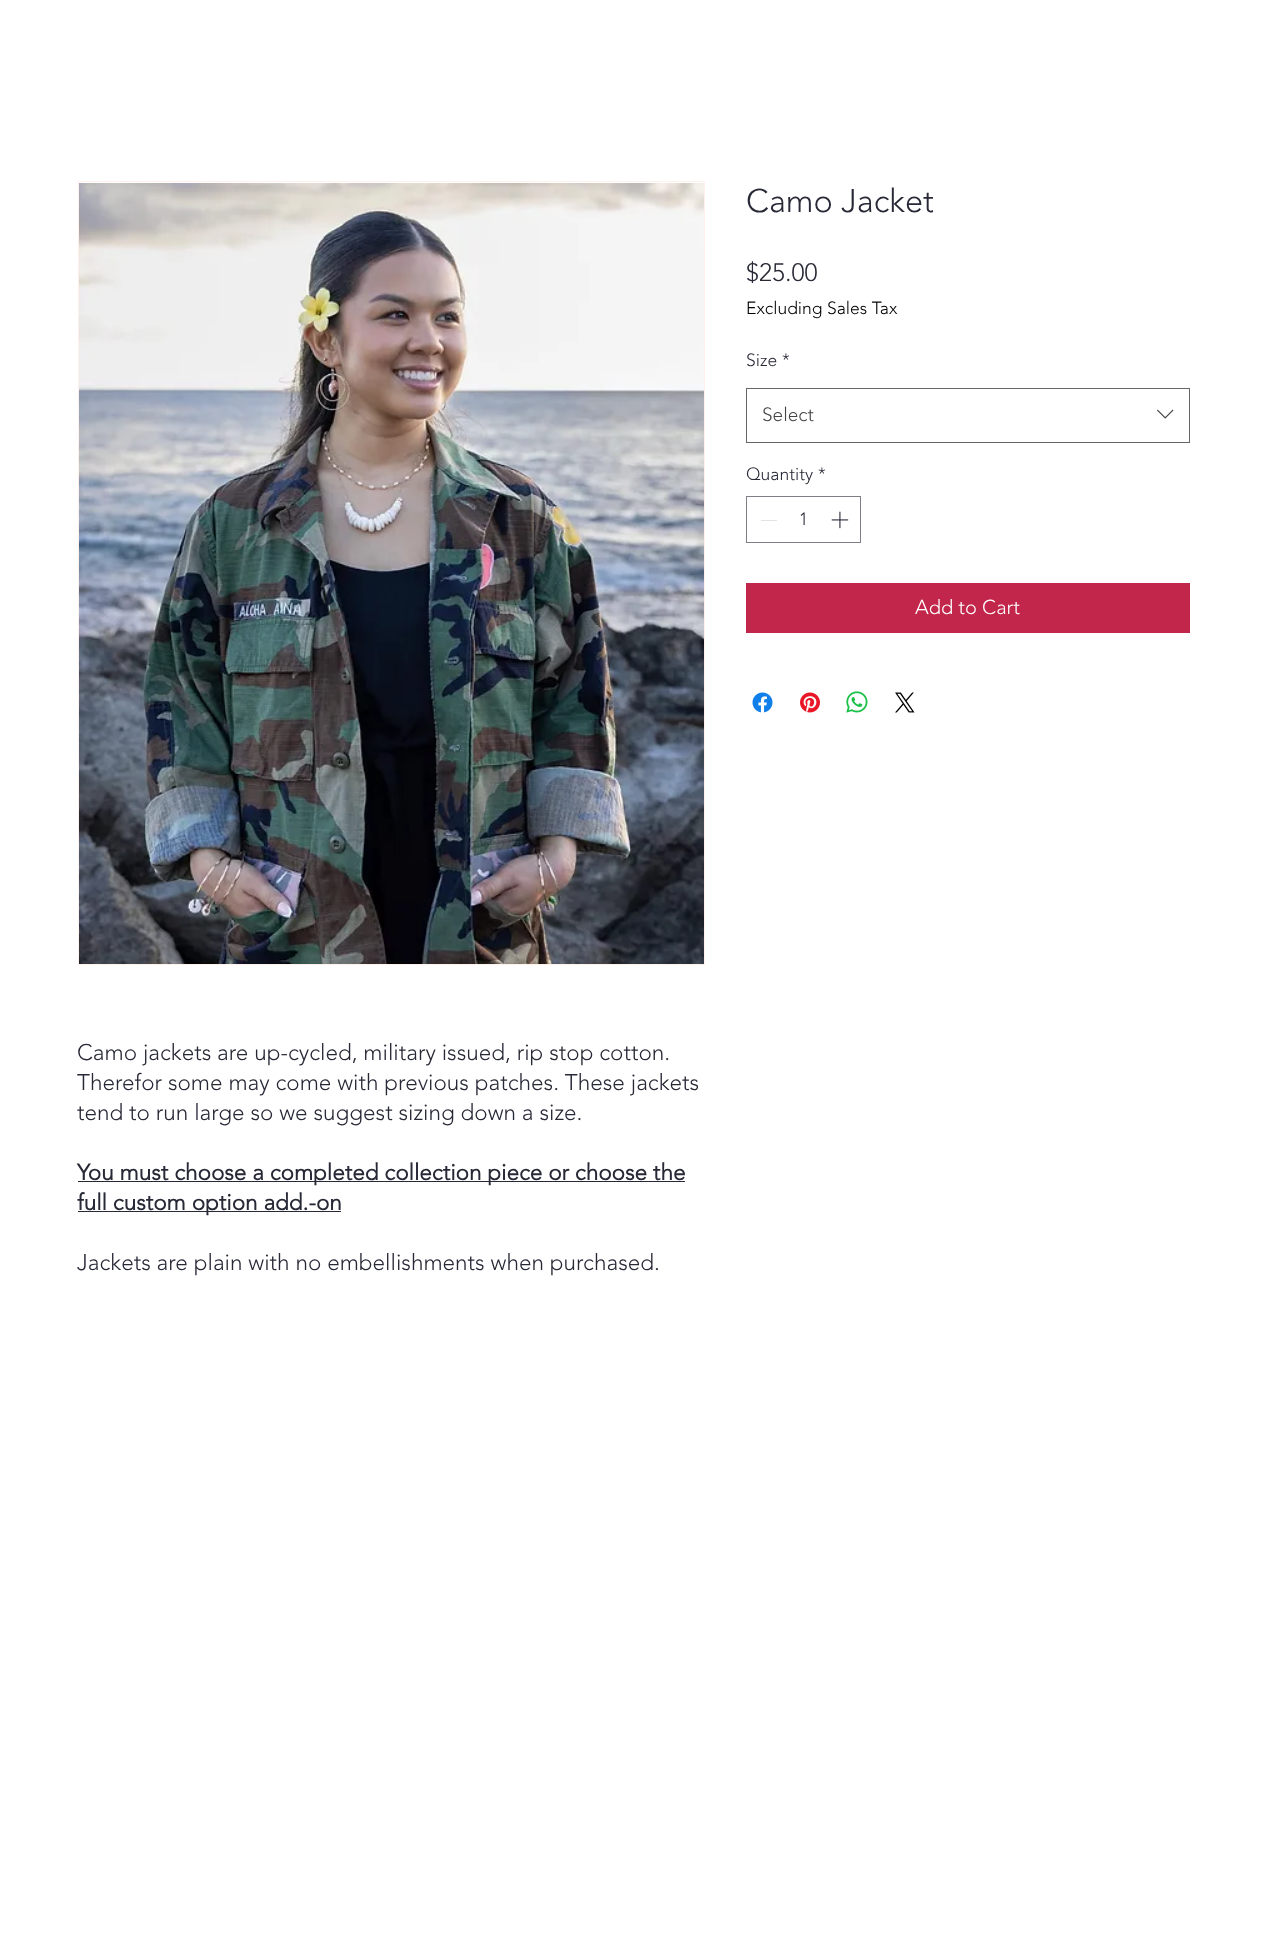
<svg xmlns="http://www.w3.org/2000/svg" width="1266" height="1937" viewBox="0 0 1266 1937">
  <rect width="100%" height="100%" fill="rgb(255,255,255)"/>
  <text x="746" y="212" font-family="'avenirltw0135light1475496'" font-size="32.5" font-weight="300" fill="rgb(40,41,54)">Camo Jacket</text>
  <text x="746" y="281" font-family="'avenirltw0135light1475496'" font-size="25" font-weight="300" fill="rgb(40,41,54)">$25.00</text>
  <text x="746" y="314" font-family="'avenirltw0135light1475496'" font-size="17.5" font-weight="300" fill="rgb(0,0,0)">Excluding Sales Tax</text>
  <g font-family="'avenirltw0135light1475496'" font-size="17.5" font-weight="300" fill="rgb(40,41,54)">
    <text x="746" y="366">Size</text>
    <text x="782" y="366">*</text>
  </g>
  <rect x="746.5" y="388.5" width="443" height="54" fill="none" stroke="rgb(102,102,102)"/>
  <text x="762" y="421" font-family="'avenirltw0135light1475496'" font-size="19" font-weight="300" fill="rgb(68,68,68)">Select</text>
  <image x="1157" y="409" width="17" height="10" href="pic1.png"/>
  <g font-family="'avenirltw0135light1475496'" font-size="17.5" font-weight="300" fill="rgb(40,41,54)">
    <text x="746" y="480">Quantity</text>
    <text x="818" y="480">*</text>
  </g>
  <rect x="746.5" y="496.5" width="114" height="46" fill="none" stroke="rgb(126,127,134)"/>
  <rect x="761" y="520" width="16" height="1" fill="rgb(227,227,227)"/>
  <text x="799" y="525" font-family="'avenirltw0135light1475496'" font-size="17.5" font-weight="300" fill="rgb(40,41,54)">1</text>
  <image x="831" y="511" width="18" height="18" href="pic2.png"/>
  <rect x="746" y="583" width="444" height="50" fill="rgb(194,39,75)"/>
  <text x="915" y="614" font-family="'avenirltw0135light1475496'" font-size="20" font-weight="300" fill="rgb(255,255,255)">Add to Cart</text>
  <image x="752" y="692" width="21" height="21" href="pic3.png"/>
  <image x="800" y="692" width="20" height="21" href="pic4.png"/>
  <image x="846" y="691" width="22" height="22" href="pic5.png"/>
  <image x="895" y="692" width="20" height="21" href="pic6.png"/>
  <rect x="78.5" y="181.5" width="626" height="783" fill="none" stroke="rgb(255,240,236)"/>
  <image x="79" y="183" width="625" height="781" href="pic7.png"/>
  <g font-family="'avenirltw0135light1475496'" font-size="22.5" font-weight="300" fill="rgb(40,41,54)">
    <text>
      <tspan x="77" y="1060">Camo jackets are up-cycled, military issued, rip stop cotton.</tspan>
      <tspan x="77" y="1090">Therefor some may come with previous patches. These jackets</tspan>
      <tspan x="77" y="1120">tend to run large so we suggest sizing down a size.</tspan>
    </text>
  </g>
  <rect x="78" y="1181" width="607" height="1" fill="rgb(40,41,54)"/>
  <text x="77" y="1180" font-family="'avenirltw0135light1475496'" font-size="22.5" font-weight="bold" fill="rgb(40,41,54)">You must choose a completed collection piece or choose the</text>
  <rect x="78" y="1211" width="263" height="1" fill="rgb(40,41,54)"/>
  <text x="77" y="1210" font-family="'avenirltw0135light1475496'" font-size="22.5" font-weight="bold" fill="rgb(40,41,54)">full custom option add.-on</text>
  <text x="77" y="1270" font-family="'avenirltw0135light1475496'" font-size="22.5" font-weight="300" fill="rgb(40,41,54)">Jackets are plain with no embellishments when purchased.</text>
</svg>
